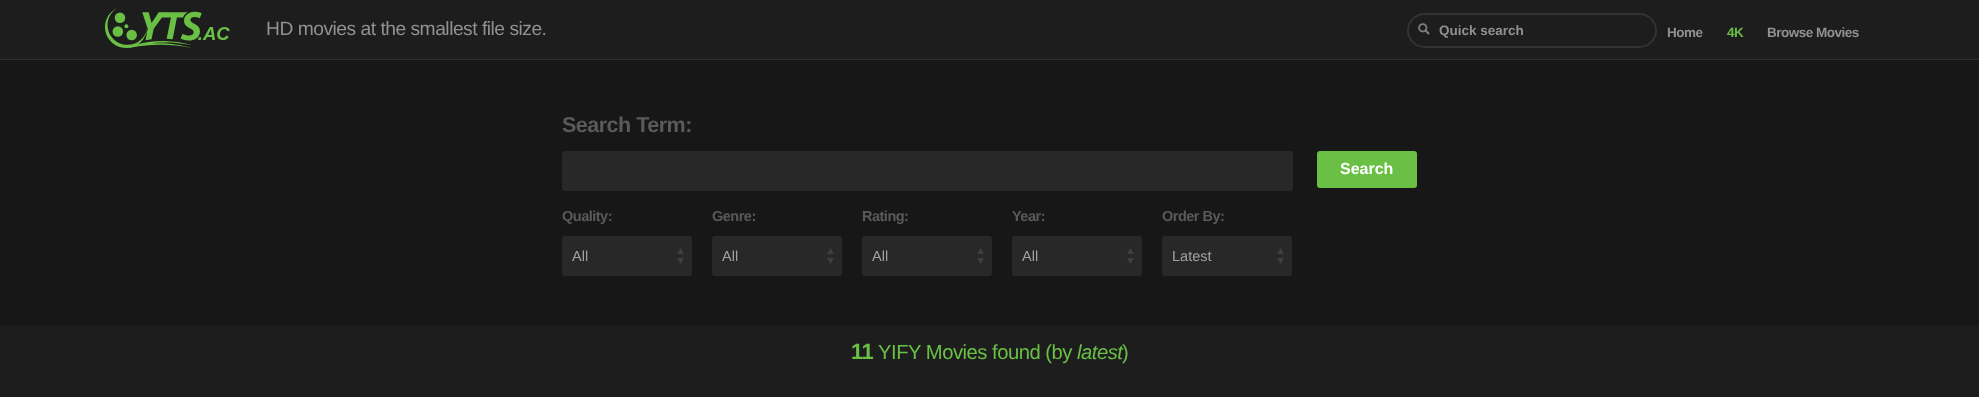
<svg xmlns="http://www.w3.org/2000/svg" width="1979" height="397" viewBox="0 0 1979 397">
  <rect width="100%" height="100%" fill="rgb(29,29,29)"/>
  <rect x="0" y="59" width="1979" height="1" fill="rgb(47,47,47)"/>
  <image x="105" y="8" width="125" height="40" href="pic1.png"/>
  <text x="266" y="35" font-family="Liberation Sans" font-size="19.25" letter-spacing="-0.5" fill="rgb(145,145,145)">HD movies at the smallest file size.</text>
  <image x="1418" y="23" width="12" height="12" href="pic2.png"/>
  <rect x="1408" y="14" width="248" height="33" rx="16.5" fill="none" stroke="rgb(51,51,51)" stroke-width="2"/>
  <text x="1439" y="35" font-family="Liberation Sans" font-size="13.5" font-weight="bold" fill="rgb(145,145,145)">Quick search</text>
  <text x="1667" y="37" font-family="Liberation Sans" font-size="13.5" font-weight="bold" letter-spacing="-0.5" fill="rgb(145,145,145)">Home</text>
  <text x="1727" y="37" font-family="Liberation Sans" font-size="13.5" font-weight="bold" letter-spacing="-0.5" fill="rgb(106,192,69)">4K</text>
  <text x="1767" y="37" font-family="Liberation Sans" font-size="13.5" font-weight="bold" letter-spacing="-0.5" fill="rgb(145,145,145)">Browse Movies</text>
  <rect x="0" y="60" width="1979" height="266" fill="rgb(23,23,23)"/>
  <text x="562" y="132" font-family="Liberation Sans" font-size="21.5" font-weight="bold" letter-spacing="-0.5" fill="rgb(90,90,90)">Search Term:</text>
  <rect x="562" y="151" width="731" height="40" rx="3" fill="rgb(40,40,40)"/>
  <text x="562" y="221" font-family="Liberation Sans" font-size="14.5" font-weight="bold" letter-spacing="-0.5" fill="rgb(90,90,90)">Quality:</text>
  <rect x="562" y="236" width="130" height="40" rx="3" fill="rgb(40,40,40)"/>
  <image x="677" y="248" width="7" height="16" href="pic3.png"/>
  <text x="572" y="261" font-family="Liberation Sans" font-size="14.5" fill="rgb(162,162,162)">All</text>
  <text x="712" y="221" font-family="Liberation Sans" font-size="14.5" font-weight="bold" letter-spacing="-0.5" fill="rgb(90,90,90)">Genre:</text>
  <rect x="712" y="236" width="130" height="40" rx="3" fill="rgb(40,40,40)"/>
  <image x="827" y="248" width="7" height="16" href="pic3.png"/>
  <text x="722" y="261" font-family="Liberation Sans" font-size="14.5" fill="rgb(162,162,162)">All</text>
  <text x="862" y="221" font-family="Liberation Sans" font-size="14.5" font-weight="bold" letter-spacing="-0.5" fill="rgb(90,90,90)">Rating:</text>
  <rect x="862" y="236" width="130" height="40" rx="3" fill="rgb(40,40,40)"/>
  <image x="977" y="248" width="7" height="16" href="pic3.png"/>
  <text x="872" y="261" font-family="Liberation Sans" font-size="14.5" fill="rgb(162,162,162)">All</text>
  <text x="1012" y="221" font-family="Liberation Sans" font-size="14.5" font-weight="bold" letter-spacing="-0.5" fill="rgb(90,90,90)">Year:</text>
  <rect x="1012" y="236" width="130" height="40" rx="3" fill="rgb(40,40,40)"/>
  <image x="1127" y="248" width="7" height="16" href="pic3.png"/>
  <text x="1022" y="261" font-family="Liberation Sans" font-size="14.5" fill="rgb(162,162,162)">All</text>
  <text x="1162" y="221" font-family="Liberation Sans" font-size="14.5" font-weight="bold" letter-spacing="-0.5" fill="rgb(90,90,90)">Order By:</text>
  <rect x="1162" y="236" width="130" height="40" rx="3" fill="rgb(40,40,40)"/>
  <image x="1277" y="248" width="7" height="16" href="pic3.png"/>
  <text x="1172" y="261" font-family="Liberation Sans" font-size="14.5" fill="rgb(162,162,162)">Latest</text>
  <rect x="1317" y="151" width="100" height="37" rx="3" fill="rgb(106,192,69)"/>
  <text x="1340" y="174" font-family="Liberation Sans" font-size="16" font-weight="bold" fill="rgb(255,255,255)">Search</text>
  <text x="851" y="359" font-family="Liberation Sans" font-size="22" font-weight="bold" letter-spacing="-0.5" fill="rgb(106,192,69)">11</text>
  <text x="878" y="359" font-family="Liberation Sans" font-size="20.25" letter-spacing="-0.5" fill="rgb(106,192,69)">YIFY Movies found (by</text>
  <text x="1077" y="359" font-family="Liberation Sans" font-size="20.25" font-style="italic" letter-spacing="-0.5" fill="rgb(106,192,69)">latest</text>
  <text x="1122" y="359" font-family="Liberation Sans" font-size="20.25" letter-spacing="-0.5" fill="rgb(106,192,69)">)</text>
</svg>
